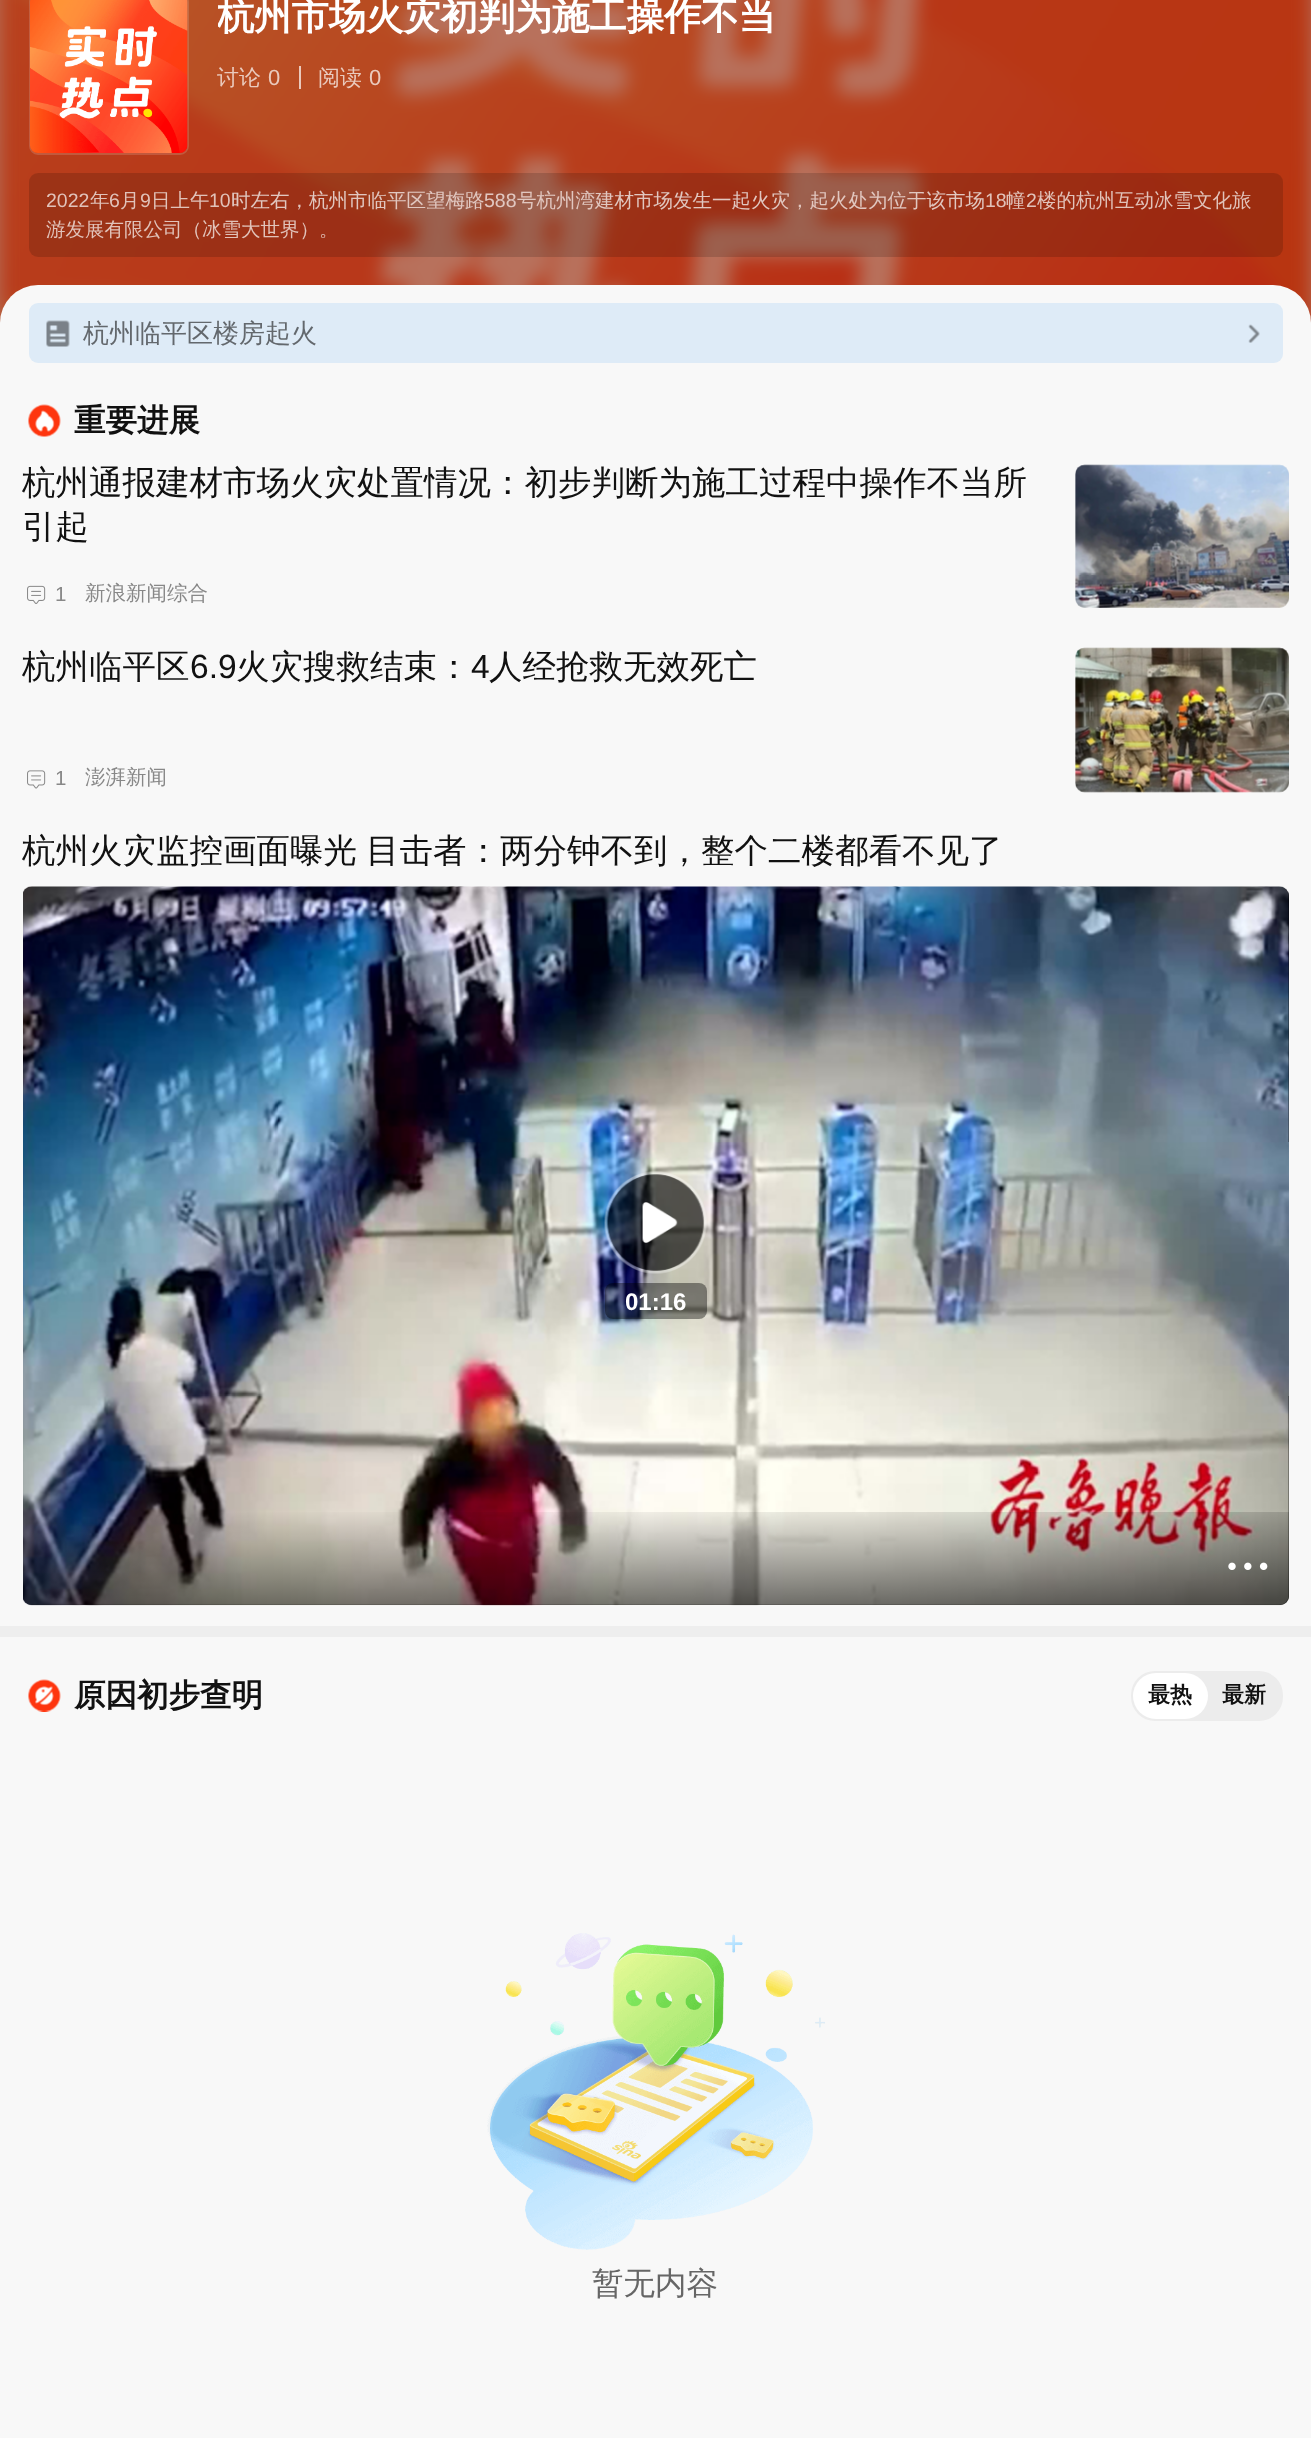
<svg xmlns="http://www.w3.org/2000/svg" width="1311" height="2438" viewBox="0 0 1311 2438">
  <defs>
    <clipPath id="clip1"><rect x="218" y="0" width="1065" height="42"/></clipPath>
    <linearGradient id="g1" gradientUnits="userSpaceOnUse" x1="657" y1="1616" x2="654" y2="1501"><stop offset="0" stop-color="rgb(0,0,0)" stop-opacity="0.6"/><stop offset="1" stop-color="rgb(0,0,0)" stop-opacity="0"/></linearGradient>
  </defs>
  <rect width="100%" height="100%" fill="rgb(248,248,248)"/>
  <rect x="0" y="0" width="1311" height="323" fill="rgb(182,111,90)"/>
  <image x="0" y="0" width="1311" height="323" href="pic1.png"/>
  <rect x="30" y="-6" width="158" height="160" rx="8" fill="none" stroke="rgba(255,255,255,0.15)" stroke-width="2"/>
  <image x="30" y="0" width="158" height="153" href="pic2.png"/>
  <g clip-path="url(#clip1)">
    <text x="217" y="29" font-family="WenQuanYi Zen Hei" font-size="37.25" font-weight="bold" fill="rgb(255,255,255)">杭州市场火灾初判为施工操作不当</text>
  </g>
  <text x="217" y="85" font-family="WenQuanYi Zen Hei" font-size="22" font-weight="500" fill="rgb(234,202,189)">讨论</text>
  <text x="268" y="85" font-family="Liberation Sans" font-size="22" fill="rgb(234,202,189)">0</text>
  <rect x="299" y="66" width="2" height="23" fill="rgb(234,201,189)"/>
  <text x="318" y="85" font-family="WenQuanYi Zen Hei" font-size="22" font-weight="500" fill="rgb(234,202,189)">阅读</text>
  <text x="369" y="85" font-family="Liberation Sans" font-size="22" fill="rgb(234,202,189)">0</text>
  <rect x="29" y="173" width="1254" height="84" rx="9" fill="rgba(0,0,0,0.15)"/>
  <text x="46" y="207" font-family="Liberation Sans" font-size="19.5" fill="rgb(225,194,185)">2022</text>
  <text x="90" y="207" font-family="WenQuanYi Zen Hei" font-size="19.5" font-weight="500" fill="rgb(225,194,185)">年</text>
  <text x="109" y="207" font-family="Liberation Sans" font-size="19.5" fill="rgb(225,194,185)">6</text>
  <text x="120" y="207" font-family="WenQuanYi Zen Hei" font-size="19.5" font-weight="500" fill="rgb(225,194,185)">月</text>
  <text x="140" y="207" font-family="Liberation Sans" font-size="19.5" fill="rgb(225,194,185)">9</text>
  <text x="151" y="207" font-family="WenQuanYi Zen Hei" font-size="19.5" font-weight="500" fill="rgb(225,194,185)">日上午</text>
  <text x="209" y="207" font-family="Liberation Sans" font-size="19.5" fill="rgb(225,194,185)">10</text>
  <text x="231" y="207" font-family="WenQuanYi Zen Hei" font-size="19.5" font-weight="500" fill="rgb(225,199,192)">时左右，杭州市临平区望梅路</text>
  <text x="484" y="207" font-family="Liberation Sans" font-size="19.5" fill="rgb(225,199,192)">588</text>
  <text x="517" y="207" font-family="WenQuanYi Zen Hei" font-size="19.5" font-weight="500" fill="rgb(225,199,192)">号杭州湾建材市场发生一起火灾，起火处为位于该市场</text>
  <text x="985" y="207" font-family="Liberation Sans" font-size="19.5" fill="rgb(225,194,185)">18</text>
  <text x="1006" y="207" font-family="WenQuanYi Zen Hei" font-size="19.5" font-weight="500" fill="rgb(225,194,185)">幢</text>
  <text x="1026" y="207" font-family="Liberation Sans" font-size="19.5" fill="rgb(225,194,185)">2</text>
  <g font-family="WenQuanYi Zen Hei" font-size="19.5" font-weight="500" fill="rgb(225,194,185)">
    <text x="1037" y="207">楼的杭州互动冰雪文化旅</text>
    <text x="46" y="236">游发展有限公司（冰雪大世界）。</text>
  </g>
  <rect x="0" y="285" width="1311" height="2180" rx="38" fill="rgb(248,248,248)"/>
  <rect x="29" y="303" width="1254" height="60" rx="9" fill="rgb(222,235,247)"/>
  <image x="46" y="320" width="24" height="27" href="pic3.png"/>
  <text x="83" y="342" font-family="WenQuanYi Zen Hei" font-size="26" font-weight="500" fill="rgb(99,104,109)">杭州临平区楼房起火</text>
  <image x="1248" y="324" width="12" height="19" href="pic4.png"/>
  <rect x="0" y="1626" width="1311" height="11" fill="rgb(238,238,238)"/>
  <image x="28" y="404" width="33" height="33" href="pic5.png"/>
  <text x="74" y="431" font-family="WenQuanYi Zen Hei" font-size="31.5" font-weight="bold" fill="rgb(17,17,17)">重要进展</text>
  <g font-family="WenQuanYi Zen Hei" font-size="33.5" font-weight="500" fill="rgb(17,17,17)">
    <text>
      <tspan x="22" y="494">杭州通报建材市场火灾处置情况：初步判断为施工过程中操作不当所</tspan>
      <tspan x="22" y="538">引起</tspan>
    </text>
  </g>
  <image x="27" y="585" width="19" height="19" href="pic6.png"/>
  <text x="55" y="601" font-family="Liberation Sans" font-size="20.5" fill="rgb(136,136,136)">1</text>
  <text x="85" y="600" font-family="WenQuanYi Zen Hei" font-size="20.5" font-weight="500" fill="rgb(136,136,136)">新浪新闻综合</text>
  <rect x="1076" y="465" width="213" height="143" rx="9" fill="rgb(242,242,242)"/>
  <image x="1075" y="464" width="214" height="144" href="pic7.png"/>
  <image x="1075" y="464" width="214" height="144" href="pic8.png"/>
  <text x="22" y="678" font-family="WenQuanYi Zen Hei" font-size="33.5" font-weight="500" fill="rgb(17,17,17)">杭州临平区</text>
  <text x="190" y="678" font-family="Liberation Sans" font-size="33.5" fill="rgb(17,17,17)">6.9</text>
  <text x="236" y="678" font-family="WenQuanYi Zen Hei" font-size="33.5" font-weight="500" fill="rgb(17,17,17)">火灾搜救结束：</text>
  <text x="471" y="678" font-family="Liberation Sans" font-size="33.5" fill="rgb(17,17,17)">4</text>
  <text x="489" y="678" font-family="WenQuanYi Zen Hei" font-size="33.5" font-weight="500" fill="rgb(17,17,17)">人经抢救无效死亡</text>
  <image x="27" y="770" width="19" height="19" href="pic9.png"/>
  <text x="55" y="785" font-family="Liberation Sans" font-size="20.5" fill="rgb(136,136,136)">1</text>
  <text x="85" y="784" font-family="WenQuanYi Zen Hei" font-size="20.5" font-weight="500" fill="rgb(136,136,136)">澎湃新闻</text>
  <rect x="1076" y="648" width="213" height="144" rx="9" fill="rgb(242,242,242)"/>
  <image x="1075" y="647" width="214" height="146" href="pic10.png"/>
  <image x="1075" y="647" width="214" height="146" href="pic11.png"/>
  <text x="22" y="862" word-spacing="-1" font-family="WenQuanYi Zen Hei" font-size="33.5" font-weight="500" fill="rgb(17,17,17)">杭州火灾监控画面曝光 目击者：两分钟不到，整个二楼都看不见了</text>
  <rect x="23" y="887" width="1266" height="718" rx="9" fill="rgb(242,242,242)"/>
  <image x="23" y="886" width="1266" height="720" href="pic12.png"/>
  <rect x="23" y="887" width="1266" height="718" rx="9" fill="rgba(0,0,0,0.6)"/>
  <image x="23" y="887" width="1266" height="718" href="pic13.png"/>
  <image x="604" y="1171" width="103" height="103" href="pic14.png"/>
  <rect x="605" y="1283" width="102" height="36" rx="8" fill="rgba(0,0,0,0.4)"/>
  <text x="625" y="1310" font-family="Liberation Sans" font-size="24" font-weight="bold" fill="rgb(255,255,255)">01:16</text>
  <path d="M23 1512H1289V1596C1289 1601 1285 1605 1280 1605H32C27 1605 23 1601 23 1596Z" fill="url(#g1)"/>
  <image x="1228" y="1562" width="40" height="8" href="pic15.png"/>
  <image x="28" y="1679" width="33" height="33" href="pic16.png"/>
  <text x="74" y="1706" font-family="WenQuanYi Zen Hei" font-size="31.5" font-weight="bold" fill="rgb(17,17,17)">原因初步查明</text>
  <rect x="1131" y="1671" width="152" height="50" rx="24" fill="rgb(236,236,236)"/>
  <rect x="1133" y="1673" width="75" height="46" rx="23" fill="rgb(255,255,255)"/>
  <g font-family="WenQuanYi Zen Hei" font-size="22" font-weight="bold" fill="rgb(17,17,17)">
    <text x="1148" y="1702">最热</text>
    <text x="1222" y="1702">最新</text>
  </g>
  <image x="487" y="1933" width="338" height="317" href="pic17.png"/>
  <text x="592" y="2294" font-family="WenQuanYi Zen Hei" font-size="31.5" font-weight="500" fill="rgb(102,102,102)">暂无内容</text>
</svg>
